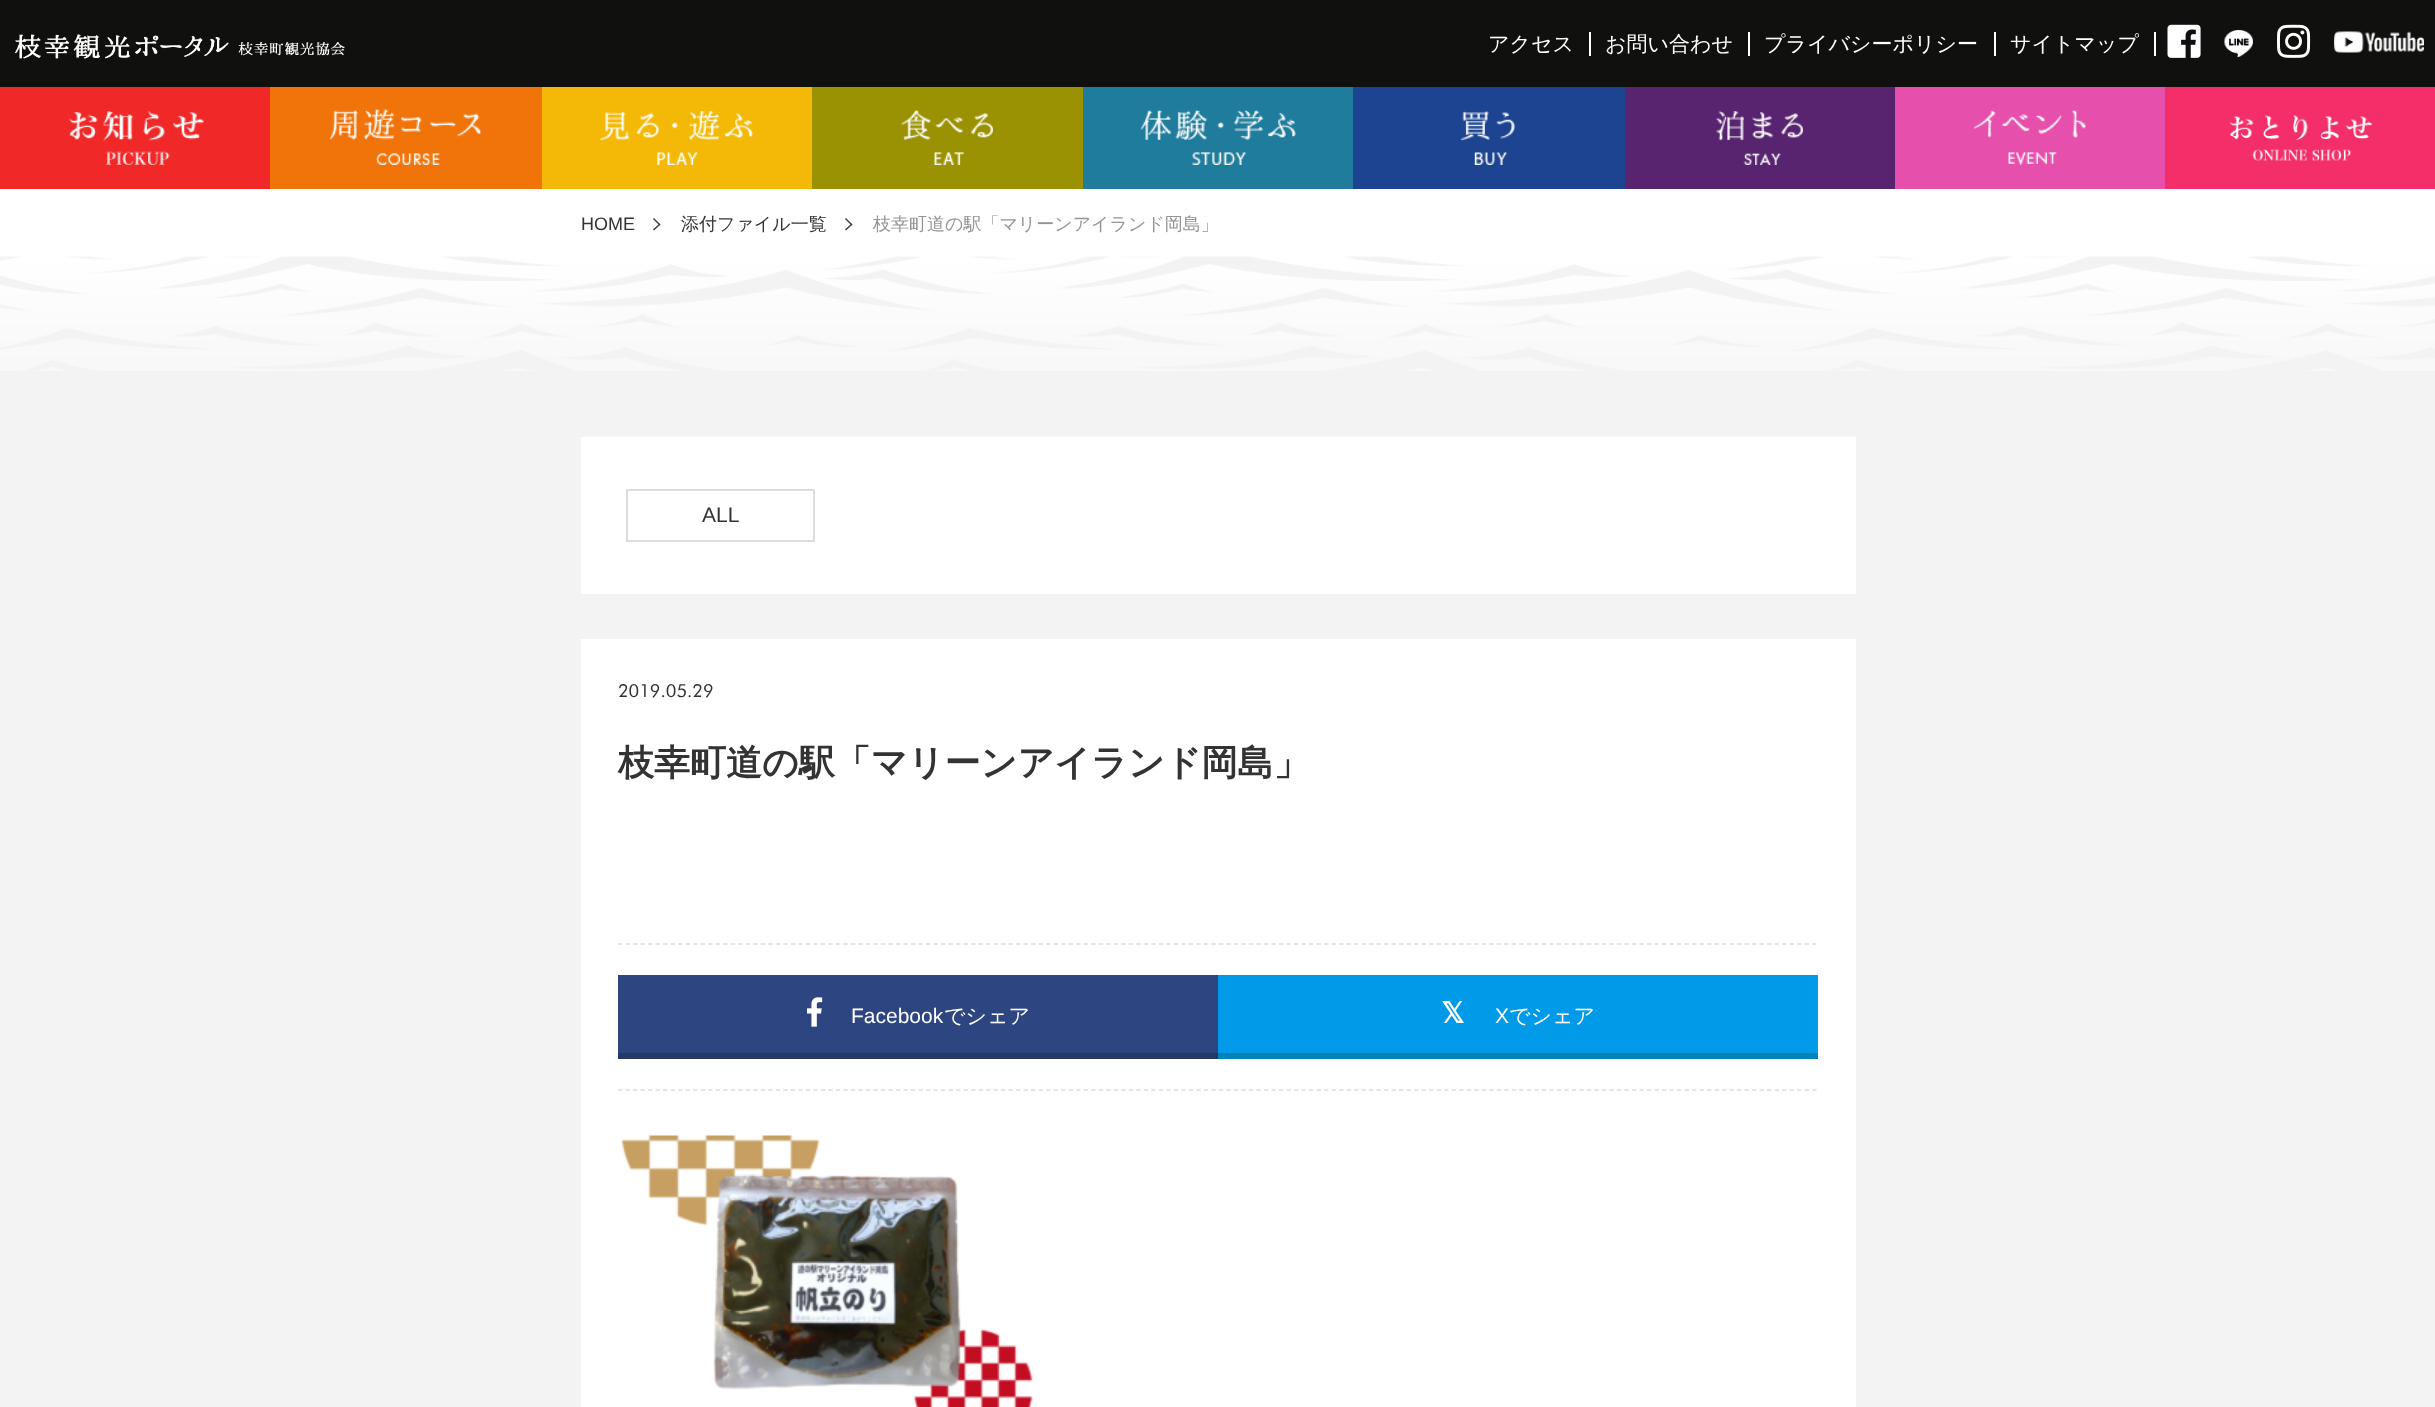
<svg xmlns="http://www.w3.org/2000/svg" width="2435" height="1407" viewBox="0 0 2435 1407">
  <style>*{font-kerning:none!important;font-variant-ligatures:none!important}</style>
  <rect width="100%" height="100%" fill="rgb(243,243,243)"/>
  <rect x="0" y="0" width="2435" height="87" fill="rgb(16,17,15)"/>
  <image x="15" y="34" width="330" height="25" href="pic1.png"/>
  <text x="1488" y="51" font-family="WenQuanYi Zen Hei" font-size="21" font-weight="500" fill="rgb(255,255,255)">アクセス</text>
  <rect x="1589" y="32" width="2" height="24" fill="rgb(255,255,255)"/>
  <text x="1605" y="51" font-family="WenQuanYi Zen Hei" font-size="21" font-weight="500" fill="rgb(255,255,255)">お問い合わせ</text>
  <rect x="1748" y="32" width="2" height="24" fill="rgb(255,255,255)"/>
  <text x="1764" y="51" font-family="WenQuanYi Zen Hei" font-size="21" font-weight="500" fill="rgb(255,255,255)">プライバシーポリシー</text>
  <rect x="1994" y="32" width="2" height="24" fill="rgb(255,255,255)"/>
  <text x="2010" y="51" font-family="WenQuanYi Zen Hei" font-size="21" font-weight="500" fill="rgb(255,255,255)">サイトマップ</text>
  <rect x="2154" y="32" width="2" height="24" fill="rgb(255,255,255)"/>
  <image x="2167" y="24" width="34" height="34" href="pic2.png"/>
  <image x="2224" y="30" width="29" height="27" href="pic3.png"/>
  <image x="2277" y="24" width="34" height="34" href="pic4.png"/>
  <image x="2334" y="31" width="90" height="22" href="pic5.png"/>
  <rect x="0" y="87" width="270" height="102" fill="rgb(240,40,40)"/>
  <image x="68" y="111" width="136" height="54" href="pic6.png"/>
  <rect x="270" y="87" width="272" height="102" fill="rgb(241,116,11)"/>
  <image x="330" y="109" width="151" height="56" href="pic7.png"/>
  <rect x="542" y="87" width="270" height="102" fill="rgb(243,185,6)"/>
  <image x="600" y="111" width="153" height="54" href="pic8.png"/>
  <rect x="812" y="87" width="271" height="102" fill="rgb(154,146,3)"/>
  <image x="901" y="109" width="92" height="56" href="pic9.png"/>
  <rect x="1083" y="87" width="270" height="102" fill="rgb(32,124,156)"/>
  <image x="1140" y="109" width="156" height="56" href="pic10.png"/>
  <rect x="1353" y="87" width="272" height="102" fill="rgb(29,68,145)"/>
  <image x="1461" y="111" width="54" height="54" href="pic11.png"/>
  <rect x="1625" y="87" width="270" height="102" fill="rgb(88,36,112)"/>
  <image x="1716" y="111" width="87" height="54" href="pic12.png"/>
  <rect x="1895" y="87" width="270" height="102" fill="rgb(231,79,173)"/>
  <image x="1974" y="109" width="113" height="56" href="pic13.png"/>
  <rect x="2165" y="87" width="270" height="102" fill="rgb(243,46,104)"/>
  <image x="2229" y="115" width="143" height="46" href="pic14.png"/>
  <rect x="0" y="189" width="2435" height="68" fill="rgb(255,255,255)"/>
  <text x="581" y="230" font-family="Liberation Sans" font-size="18" fill="rgb(51,51,51)">HOME</text>
  <path d="M654 218L660.5 224.5L659.5 225.5L653 219Z" fill="rgb(60,60,60)"/>
  <path d="M659.5 223.5L660.5 224.5L654 230.5L653 229.5Z" fill="rgb(60,60,60)"/>
  <text x="681" y="230" font-family="WenQuanYi Zen Hei" font-size="18" font-weight="500" fill="rgb(51,51,51)">添付ファイル一覧</text>
  <path d="M846 218L852.5 224.5L851.5 225.5L845 219Z" fill="rgb(60,60,60)"/>
  <path d="M851.5 223.5L852.5 224.5L846 230.5L845 229.5Z" fill="rgb(60,60,60)"/>
  <text x="873" y="230" font-family="WenQuanYi Zen Hei" font-size="18" font-weight="500" fill="rgb(148,148,148)">枝幸町道の駅「マリーンアイランド岡島」</text>
  <image x="0" y="256" width="2435" height="115" href="pic15.png"/>
  <rect x="581" y="437" width="1275" height="157" fill="rgb(255,255,255)"/>
  <rect x="627" y="490" width="187" height="51" fill="none" stroke="rgb(221,221,221)" stroke-width="2"/>
  <text x="702" y="522" font-family="Liberation Sans" font-size="21" fill="rgb(51,51,51)">ALL</text>
  <rect x="581" y="639" width="1275" height="768" fill="rgb(255,255,255)"/>
  <text x="618" y="697" font-family="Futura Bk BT" font-size="18" fill="rgb(51,51,51)">2019.05.29</text>
  <text x="618" y="775" font-family="WenQuanYi Zen Hei" font-size="36" font-weight="bold" fill="rgb(51,51,51)">枝幸町道の駅「マリーンアイランド岡島」</text>
  <path d="M618 944H1818" fill="none" stroke="rgb(221,221,221)" stroke-width="1.5" stroke-dasharray="4.5 3.01"/>
  <path d="M618 1090H1818" fill="none" stroke="rgb(221,221,221)" stroke-width="1.5" stroke-dasharray="4.5 3.01"/>
  <rect x="618" y="975" width="600" height="78" fill="rgb(45,70,130)"/>
  <rect x="618" y="1053" width="600" height="6" fill="rgb(35,58,103)"/>
  <image x="807" y="997" width="16" height="30" href="pic16.png"/>
  <text x="851" y="1023" font-family="Liberation Sans" font-size="21" fill="rgb(255,255,255)">Facebook</text>
  <text x="944" y="1023" font-family="WenQuanYi Zen Hei" font-size="21" font-weight="500" fill="rgb(255,255,255)">でシェア</text>
  <rect x="1218" y="975" width="600" height="78" fill="rgb(0,154,232)"/>
  <rect x="1218" y="1053" width="600" height="6" fill="rgb(0,132,183)"/>
  <text x="1441" y="1023" font-family="DejaVu Sans" font-size="29" font-weight="bold" fill="rgb(255,255,255)">𝕏</text>
  <text x="1495" y="1023" font-family="Liberation Sans" font-size="21" fill="rgb(255,255,255)">X</text>
  <text x="1509" y="1023" font-family="WenQuanYi Zen Hei" font-size="21" font-weight="500" fill="rgb(255,255,255)">でシェア</text>
  <image x="621" y="1135" width="412" height="272" href="pic17.png"/>
</svg>
